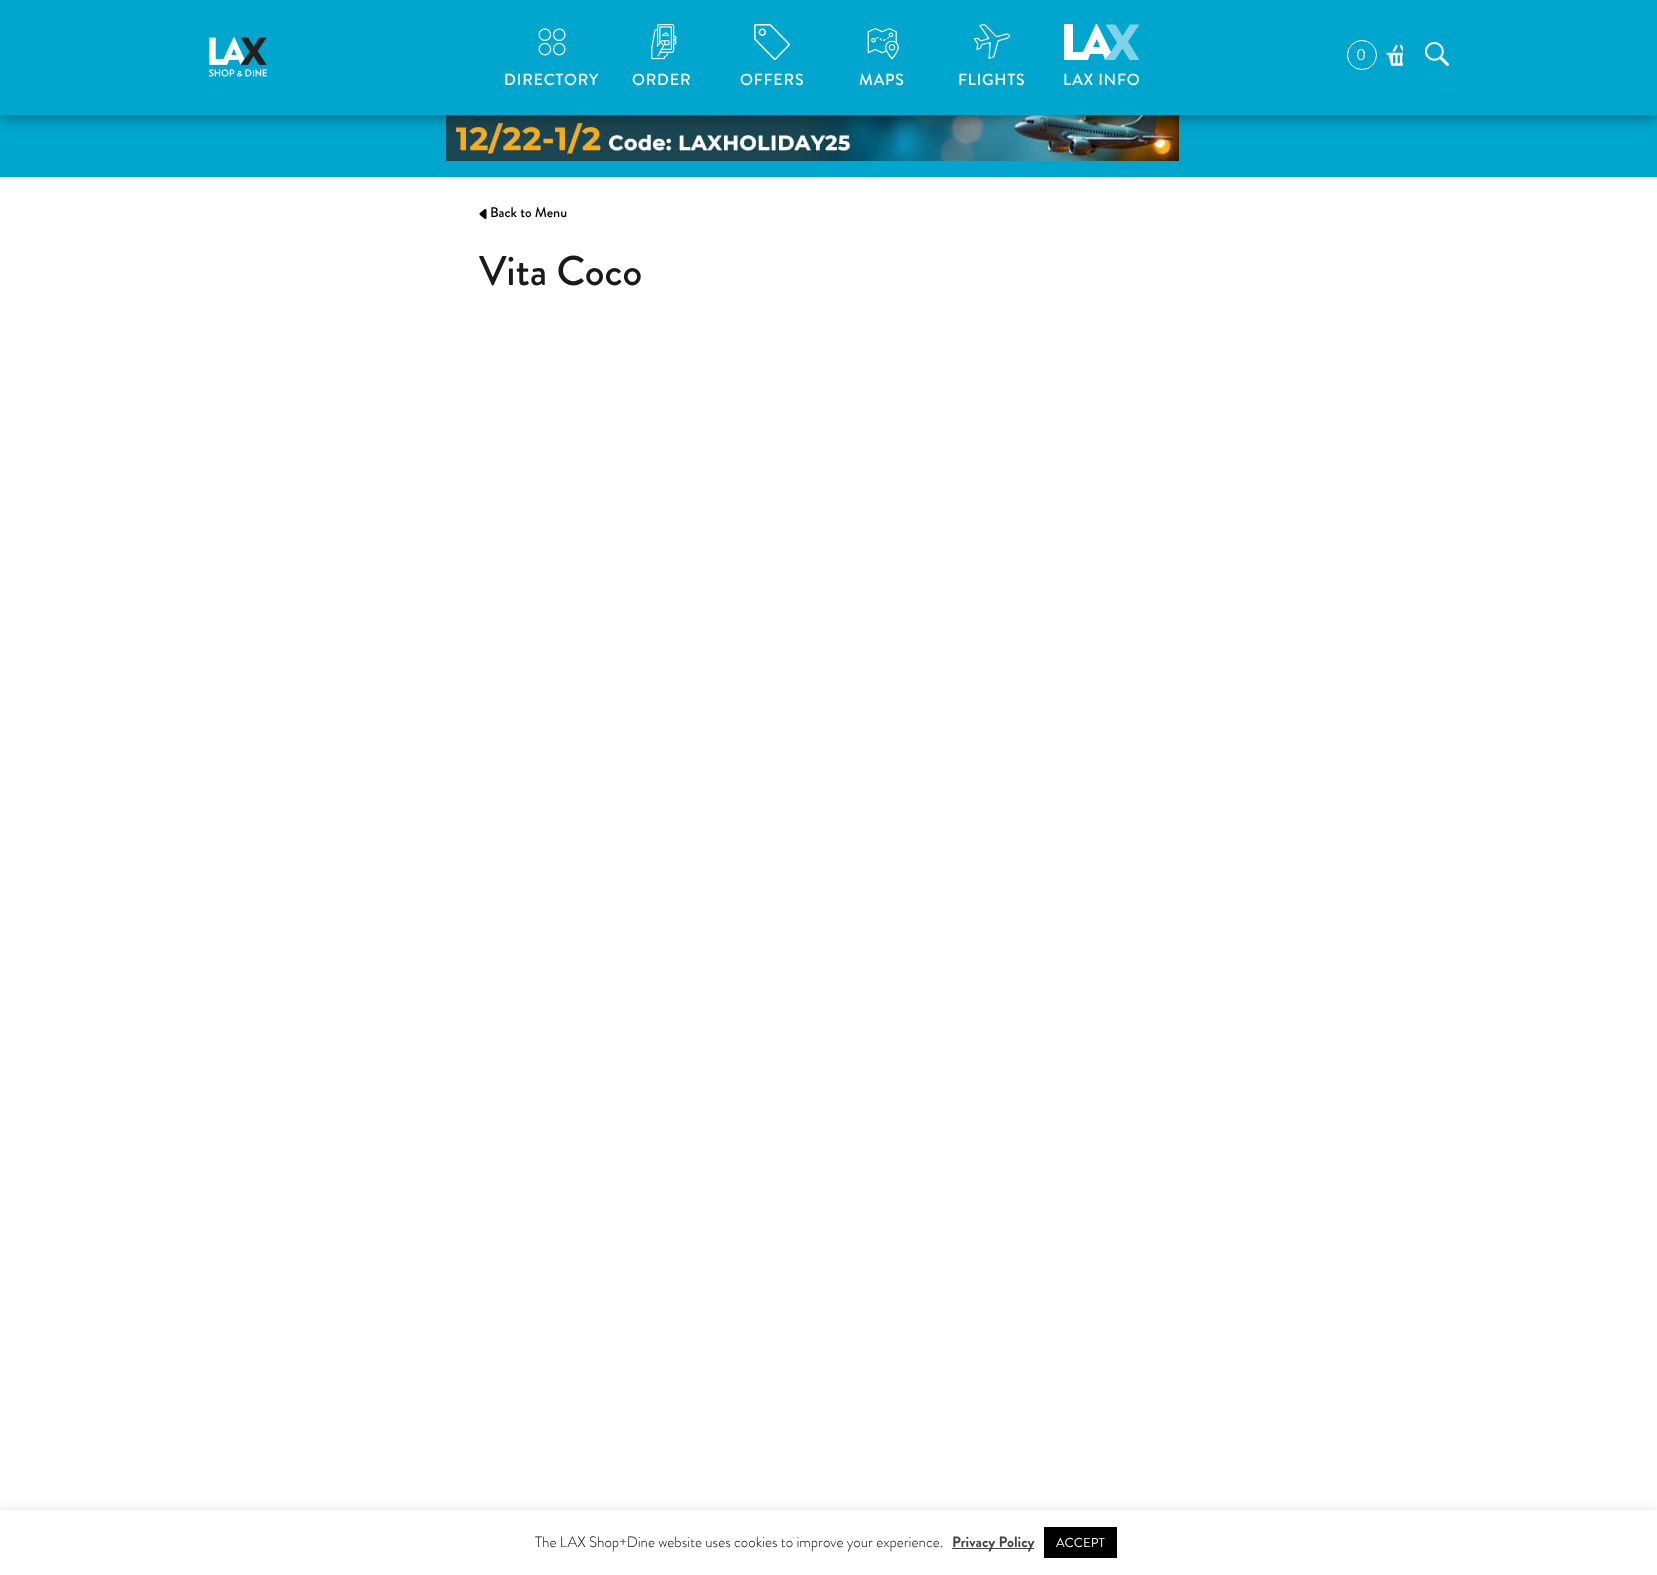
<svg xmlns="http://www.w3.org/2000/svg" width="1657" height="1575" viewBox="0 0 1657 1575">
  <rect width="100%" height="100%" fill="rgb(255,255,255)"/>
  <rect x="0" y="115" width="1657" height="62" fill="rgb(0,166,206)"/>
  <image x="446" y="115" width="733" height="46" href="pic9.png"/>
  <rect x="0" y="0" width="1657" height="115" fill="rgba(0,0,0,0.5)" filter="blur(8px)"/>
  <rect x="0" y="0" width="1657" height="115" fill="rgb(0,166,206)"/>
  <image x="209" y="37" width="58" height="40" href="pic1.png"/>
  <circle cx="1362" cy="55" r="14.5" fill="none" stroke="rgb(255,255,255)"/>
  <text x="1356" y="60" font-family="Brandon Grotesque" font-size="16" fill="rgb(255,255,255)">0</text>
  <image x="1386" y="45" width="17" height="21" href="pic2.png"/>
  <image x="1425" y="42" width="24" height="24" href="pic3.png"/>
  <image x="538" y="28" width="28" height="28" href="pic4.png"/>
  <text x="504" y="85" font-family="Brandon Grotesque" font-size="16" font-weight="500" letter-spacing="0.75" fill="rgb(255,255,255)">DIRECTORY</text>
  <image x="651" y="24" width="26" height="36" href="pic5.png"/>
  <text x="632" y="85" font-family="Brandon Grotesque" font-size="16" font-weight="500" letter-spacing="0.75" fill="rgb(255,255,255)">ORDER</text>
  <image x="754" y="24" width="36" height="36" href="pic6.png"/>
  <text x="740" y="85" font-family="Brandon Grotesque" font-size="16" font-weight="500" letter-spacing="0.75" fill="rgb(255,255,255)">OFFERS</text>
  <image x="867" y="28" width="32" height="32" href="pic7.png"/>
  <text x="859" y="85" font-family="Brandon Grotesque" font-size="16" font-weight="500" letter-spacing="0.75" fill="rgb(255,255,255)">MAPS</text>
  <image x="973" y="24" width="38" height="35" href="pic8.png"/>
  <text x="958" y="85" font-family="Brandon Grotesque" font-size="16" font-weight="500" letter-spacing="0.75" fill="rgb(255,255,255)">FLIGHTS</text>
  <path d="M1097 24H1096L1083 52H1073V24H1064V60H1088L1090 54H1103L1105 60L1111 52ZM1093 47L1097 39L1100 47Z" fill="rgb(255,255,255)"/>
  <path d="M1139.5 24.5H1130L1122.5 36L1115.5 24.5H1105.5L1117 42.5L1105.5 60H1115L1122.5 48.5L1129.5 60H1139.5L1128 41.5Z" fill="rgba(255,255,255,0.5)"/>
  <text x="1063" y="85" font-family="Brandon Grotesque" font-size="16" font-weight="500" letter-spacing="0.75" fill="rgb(255,255,255)">LAX INFO</text>
  <image x="479" y="209" width="8" height="10" href="pic10.png"/>
  <text x="490" y="217" font-family="Brandon Grotesque" font-size="14" font-weight="500" fill="rgb(0,0,0)">Back to Menu</text>
  <text x="479" y="285" font-family="Brandon Grotesque" font-size="41.5" font-weight="500" fill="rgb(26,26,26)">Vita Coco</text>
  <rect x="0" y="1509" width="1657" height="65" fill="rgba(172,171,171,0.3)" filter="blur(5px)"/>
  <rect x="0" y="1510" width="1657" height="65" fill="rgb(255,255,255)"/>
  <text x="535" y="1547" font-family="Brandon Grotesque" font-size="15" font-weight="300" fill="rgb(0,0,0)">The LAX Shop+Dine website uses cookies to improve your experience.</text>
  <rect x="952" y="1548" width="82" height="1" fill="rgb(68,68,68)"/>
  <text x="952" y="1547" font-family="Brandon Grotesque" font-size="15" font-weight="bold" fill="rgb(68,68,68)">Privacy Policy</text>
  <rect x="1044" y="1527" width="73" height="31" fill="rgb(0,0,0)"/>
  <text x="1056" y="1547" font-family="Brandon Grotesque" font-size="13" fill="rgb(255,255,255)">ACCEPT</text>
</svg>
